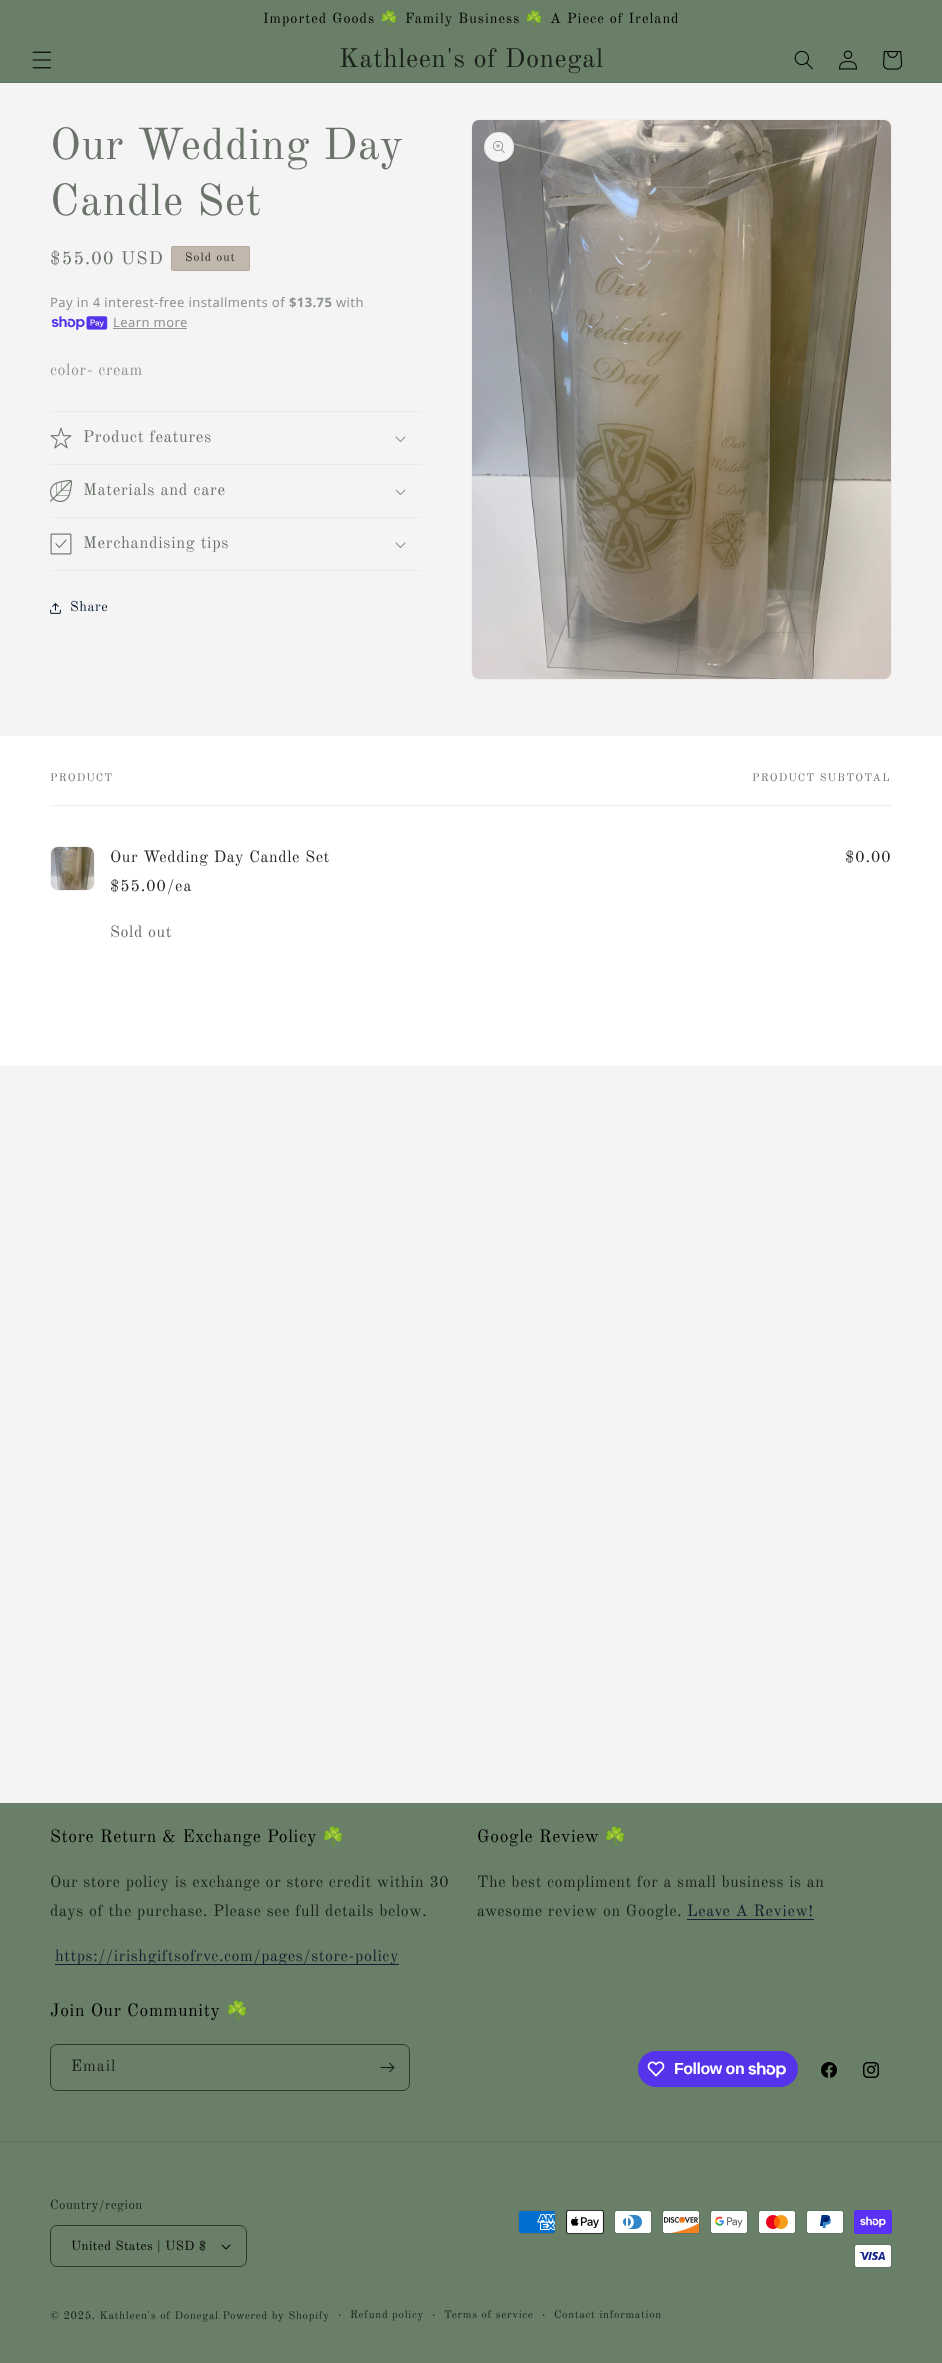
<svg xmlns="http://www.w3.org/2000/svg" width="942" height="2363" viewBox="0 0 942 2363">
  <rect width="100%" height="100%" fill="rgb(244,244,244)"/>
  <rect x="0" y="0" width="942" height="82" fill="rgb(105,127,103)"/>
  <text x="263" y="23" font-family="Old Standard TT" font-size="14.25" letter-spacing="1" fill="rgb(0,0,0)">Imported Goods</text>
  <text x="380" y="23" font-family="Noto Color Emoji" font-size="14.25" letter-spacing="1" fill="rgb(0,0,0)">☘️</text>
  <text x="405" y="23" font-family="Old Standard TT" font-size="14.25" letter-spacing="1" fill="rgb(0,0,0)">Family Business</text>
  <text x="525" y="23" font-family="Noto Color Emoji" font-size="14.25" letter-spacing="1" fill="rgb(0,0,0)">☘️</text>
  <text x="550" y="23" font-family="Old Standard TT" font-size="14.25" letter-spacing="1" fill="rgb(0,0,0)">A Piece of Ireland</text>
  <rect x="0" y="82" width="942" height="1" fill="rgb(97,117,95)"/>
  <image x="32" y="51" width="20" height="18" href="pic1.png"/>
  <text x="339" y="67" font-family="Old Standard TT" font-size="26.4" letter-spacing="0.65" fill="rgb(26,32,26)">Kathleen's of Donegal</text>
  <image x="794" y="50" width="19" height="20" href="pic2.png"/>
  <image x="839" y="50" width="18" height="20" href="pic3.png"/>
  <image x="883" y="51" width="20" height="19" href="pic4.png"/>
  <g font-family="Old Standard TT" font-size="44" letter-spacing="0.65" fill="rgb(107,115,106)">
    <text>
      <tspan x="50" y="159">Our Wedding Day</tspan>
      <tspan x="50" y="215">Candle Set</tspan>
    </text>
  </g>
  <text x="50" y="264" font-family="Old Standard TT" font-size="18" letter-spacing="1.25" fill="rgb(107,115,106)">$55.00 USD</text>
  <rect x="171" y="246" width="79" height="25" rx="2" fill="rgb(194,183,172)"/>
  <rect x="171.5" y="246.5" width="78" height="24" rx="1.5" fill="none" stroke="rgba(38,38,38,0.1)"/>
  <text x="185" y="261" font-family="Old Standard TT" font-size="12" letter-spacing="1" fill="rgb(38,38,38)">Sold out</text>
  <text x="50" y="307" font-family="Noto Sans" font-size="13" letter-spacing="0.4" fill="rgb(141,147,141)">Pay in 4 interest-free installments of</text>
  <text x="289" y="307" font-family="Noto Sans" font-size="13" font-weight="bold" letter-spacing="0.4" fill="rgb(141,147,141)">$13.75</text>
  <text x="336" y="307" font-family="Noto Sans" font-size="13" letter-spacing="0.4" fill="rgb(141,147,141)">with</text>
  <image x="51" y="316" width="57" height="14" href="pic5.png"/>
  <text x="113" y="327" font-family="Noto Sans" font-size="13" letter-spacing="0.4" fill="rgb(141,147,141)">Learn more</text>
  <rect x="113" y="328" width="74" height="1" fill="rgb(141,147,141)"/>
  <text x="50" y="375" font-family="Old Standard TT" font-size="16" letter-spacing="0.6" fill="rgb(141,147,141)">color- cream</text>
  <rect x="50" y="411" width="371" height="1" fill="rgb(233,234,233)"/>
  <rect x="50" y="464" width="371" height="1" fill="rgb(233,234,233)"/>
  <image x="50" y="427" width="22" height="22" href="pic6.png"/>
  <text x="83" y="442" font-family="Old Standard TT" font-size="16.5" letter-spacing="0.65" fill="rgb(107,115,106)">Product features</text>
  <image x="395" y="436" width="11" height="6" href="pic7.png"/>
  <rect x="50" y="517" width="371" height="1" fill="rgb(233,234,233)"/>
  <image x="50" y="480" width="22" height="22" href="pic8.png"/>
  <text x="83" y="495" font-family="Old Standard TT" font-size="16.5" letter-spacing="0.65" fill="rgb(107,115,106)">Materials and care</text>
  <image x="395" y="489" width="11" height="6" href="pic7.png"/>
  <rect x="50" y="570" width="371" height="1" fill="rgb(233,234,233)"/>
  <image x="50" y="533" width="22" height="22" href="pic9.png"/>
  <text x="83" y="548" font-family="Old Standard TT" font-size="16.5" letter-spacing="0.65" fill="rgb(107,115,106)">Merchandising tips</text>
  <image x="395" y="542" width="11" height="6" href="pic7.png"/>
  <image x="50" y="603" width="11" height="11" href="pic10.png"/>
  <text x="70" y="611" font-family="Old Standard TT" font-size="14" letter-spacing="0.6" fill="rgb(0,17,40)">Share</text>
  <rect x="471.5" y="119.5" width="420" height="560" rx="7.5" fill="none" stroke="rgb(237,238,237)"/>
  <image x="472" y="120" width="419" height="559" href="pic11.png"/>
  <circle cx="499" cy="147" r="15" fill="rgb(244,244,244)"/>
  <circle cx="499" cy="147" r="14.5" fill="none" stroke="rgba(107,115,106,0.1)"/>
  <image x="493" y="141" width="12" height="12" href="pic12.png"/>
  <rect x="0" y="736" width="942" height="330" fill="rgb(255,255,255)"/>
  <rect x="50" y="805" width="842" height="1" fill="rgb(238,238,238)"/>
  <g font-family="Old Standard TT" font-size="11" letter-spacing="1.25" fill="rgb(117,117,117)">
    <text x="50" y="781">PRODUCT</text>
    <text x="752" y="781">PRODUCT SUBTOTAL</text>
  </g>
  <rect x="50.5" y="846.5" width="44" height="44" rx="7.5" fill="none" stroke="rgb(244,244,244)"/>
  <image x="51" y="847" width="43" height="43" href="pic13.png"/>
  <text x="110" y="862" font-family="Old Standard TT" font-size="16" letter-spacing="0.6" fill="rgb(38,38,38)">Our Wedding Day Candle Set</text>
  <g font-family="Old Standard TT" font-size="16" letter-spacing="1" fill="rgb(38,38,38)">
    <text x="110" y="891">$55.00/ea</text>
    <text x="845" y="862">$0.00</text>
  </g>
  <text x="110" y="937" font-family="Old Standard TT" font-size="16" letter-spacing="0.6" fill="rgb(103,103,103)">Sold out</text>
  <rect x="0" y="1803" width="942" height="560" fill="rgb(105,127,103)"/>
  <text x="50" y="1842" font-family="Old Standard TT" font-size="17.6" letter-spacing="0.65" fill="rgb(0,0,0)">Store Return &amp; Exchange Policy</text>
  <text x="322" y="1842" font-family="Noto Color Emoji" font-size="17.6" letter-spacing="0.65" fill="rgb(0,0,0)">☘️</text>
  <g font-family="Old Standard TT" font-size="16" letter-spacing="0.6" fill="rgb(26,32,26)">
    <text>
      <tspan x="50" y="1887">Our store policy is exchange or store credit within 30</tspan>
      <tspan x="50" y="1916">days of the purchase. Please see full details below.</tspan>
    </text>
  </g>
  <rect x="55" y="1964" width="344" height="1" fill="rgb(16,34,49)"/>
  <text x="55" y="1961" font-family="Old Standard TT" font-size="16" letter-spacing="0.6" fill="rgb(15,33,49)">https://irishgiftsofrvc.com/pages/store-policy</text>
  <text x="477" y="1842" font-family="Old Standard TT" font-size="17.6" letter-spacing="0.65" fill="rgb(0,0,0)">Google Review</text>
  <text x="604" y="1842" font-family="Noto Color Emoji" font-size="17.6" letter-spacing="0.65" fill="rgb(0,0,0)">☘️</text>
  <g font-family="Old Standard TT" font-size="16" letter-spacing="0.6" fill="rgb(26,32,26)">
    <text>
      <tspan x="477" y="1887">The best compliment for a small business is an</tspan>
      <tspan x="477" y="1916">awesome review on Google.</tspan>
    </text>
  </g>
  <text x="687" y="1916" font-family="Old Standard TT" font-size="16" letter-spacing="0.6" fill="rgb(15,33,49)">Leave A Review!</text>
  <rect x="687" y="1919" width="127" height="1" fill="rgb(16,34,49)"/>
  <text x="50" y="2016" font-family="Old Standard TT" font-size="17.6" letter-spacing="0.65" fill="rgb(0,0,0)">Join Our Community</text>
  <text x="226" y="2016" font-family="Noto Color Emoji" font-size="17.6" letter-spacing="0.65" fill="rgb(0,0,0)">☘️</text>
  <rect x="50.5" y="2044.5" width="359" height="46" rx="6.5" fill="none" stroke="rgb(47,57,46)"/>
  <text x="71" y="2071" font-family="Old Standard TT" font-size="16" letter-spacing="1" fill="rgb(26,32,26)">Email</text>
  <image x="380" y="2062" width="15" height="11" href="pic14.png"/>
  <rect x="638" y="2051" width="160" height="36" rx="18" fill="rgb(84,51,235)"/>
  <image x="647" y="2061" width="18" height="16" href="pic15.png"/>
  <text x="674" y="2074" font-family="Liberation Sans" font-size="16" font-weight="bold" letter-spacing="-0.5" fill="rgb(255,255,255)">Follow on</text>
  <image x="748" y="2062" width="38" height="16" href="pic16.png"/>
  <image x="821" y="2062" width="16" height="16" href="pic17.png"/>
  <image x="863" y="2062" width="16" height="16" href="pic18.png"/>
  <rect x="0" y="2141" width="942" height="1" fill="rgb(97,117,95)"/>
  <text x="50" y="2209" font-family="Old Standard TT" font-size="13" letter-spacing="0.4" fill="rgb(26,32,26)">Country/region</text>
  <image x="221" y="2244" width="10" height="6" href="pic19.png"/>
  <rect x="50.5" y="2225.5" width="196" height="41" rx="6.5" fill="none" stroke="rgb(47,57,46)"/>
  <text x="71" y="2250" font-family="Old Standard TT" font-size="13" letter-spacing="0.4" fill="rgb(0,0,0)">United States | USD $</text>
  <image x="518" y="2210" width="38" height="24" href="pic20.png"/>
  <image x="566" y="2210" width="38" height="24" href="pic21.png"/>
  <image x="614" y="2210" width="38" height="24" href="pic22.png"/>
  <image x="662" y="2210" width="38" height="24" href="pic23.png"/>
  <image x="710" y="2210" width="38" height="24" href="pic24.png"/>
  <image x="758" y="2210" width="38" height="24" href="pic25.png"/>
  <image x="806" y="2210" width="38" height="24" href="pic26.png"/>
  <image x="854" y="2210" width="38" height="24" href="pic27.png"/>
  <image x="854" y="2244" width="38" height="24" href="pic28.png"/>
  <text x="50" y="2319" font-family="Old Standard TT" font-size="11" letter-spacing="0.7" fill="rgb(26,32,26)">© 2025, Kathleen's of Donegal Powered by Shopify</text>
  <text x="338" y="2319" font-family="Old Standard TT" font-size="12" letter-spacing="0.7" fill="rgb(26,32,26)">·</text>
  <text x="350" y="2318" font-family="Old Standard TT" font-size="11" letter-spacing="0.7" fill="rgb(26,32,26)">Refund policy</text>
  <text x="432" y="2319" font-family="Old Standard TT" font-size="12" letter-spacing="0.7" fill="rgb(26,32,26)">·</text>
  <text x="444" y="2318" font-family="Old Standard TT" font-size="11" letter-spacing="0.7" fill="rgb(26,32,26)">Terms of service</text>
  <text x="542" y="2319" font-family="Old Standard TT" font-size="12" letter-spacing="0.7" fill="rgb(26,32,26)">·</text>
  <text x="554" y="2318" font-family="Old Standard TT" font-size="11" letter-spacing="0.7" fill="rgb(26,32,26)">Contact information</text>
</svg>
